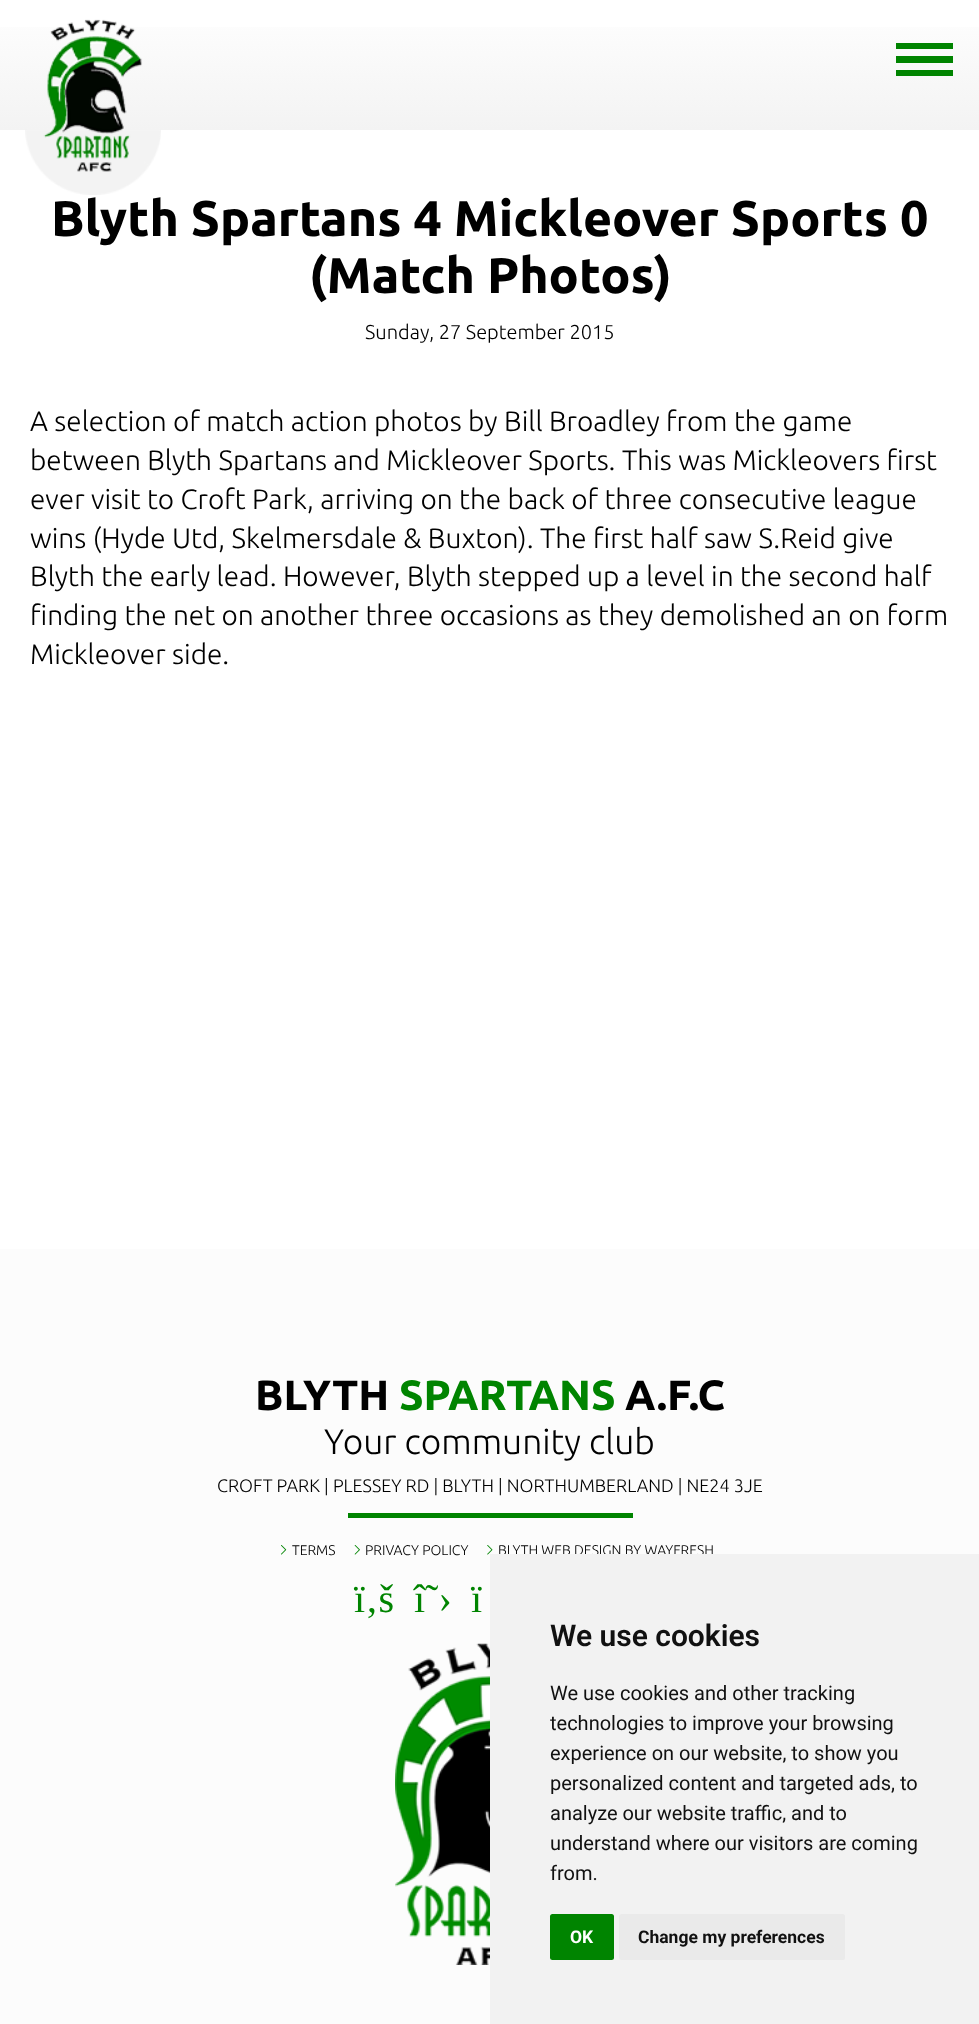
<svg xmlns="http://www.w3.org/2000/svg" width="979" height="2024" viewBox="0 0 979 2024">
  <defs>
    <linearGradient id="g1" gradientUnits="userSpaceOnUse" x1="490" y1="0" x2="490" y2="130"><stop offset="0" stop-color="rgb(255,255,255)"/><stop offset="1" stop-color="rgb(243,243,243)"/></linearGradient>
  </defs>
  <rect width="100%" height="100%" fill="rgb(255,255,255)"/>
  <rect x="0" y="27" width="979" height="103" fill="url(#g1)"/>
  <image x="25" y="19" width="136" height="176" href="pic1.png"/>
  <rect x="896" y="43" width="57" height="6" fill="rgb(0,132,0)"/>
  <rect x="896" y="56" width="57" height="7" fill="rgb(0,132,0)"/>
  <rect x="896" y="70" width="57" height="6" fill="rgb(0,132,0)"/>
  <g font-family="Ubuntu" font-size="50" font-weight="bold" fill="rgb(0,0,0)">
    <text x="51" y="236">Blyth Spartans 4 Mickleover Sports 0</text>
    <text x="309" y="293">(Match Photos)</text>
  </g>
  <text x="365" y="339" font-family="Ubuntu" font-size="20" font-weight="300" fill="rgb(0,0,0)">Sunday, 27 September 2015</text>
  <g font-family="Ubuntu" font-size="28" font-weight="300" fill="rgb(0,0,0)">
    <text>
      <tspan x="30" y="431">A selection of match action photos by Bill Broadley from the game</tspan>
      <tspan x="30" y="470">between Blyth Spartans and Mickleover Sports. This was Mickleovers first</tspan>
      <tspan x="30" y="509">ever visit to Croft Park, arriving on the back of three consecutive league</tspan>
      <tspan x="30" y="548">wins (Hyde Utd, Skelmersdale &amp; Buxton). The first half saw S.Reid give</tspan>
      <tspan x="30" y="586">Blyth the early lead. However, Blyth stepped up a level in the second half</tspan>
      <tspan x="30" y="625">finding the net on another three occasions as they demolished an on form</tspan>
      <tspan x="30" y="664">Mickleover side.</tspan>
    </text>
  </g>
  <rect x="0" y="1249" width="979" height="775" fill="rgb(252,252,252)"/>
  <text x="255" y="1410" font-family="Ubuntu" font-size="42.25" font-weight="bold" fill="rgb(0,0,0)">BLYTH</text>
  <text x="399" y="1410" font-family="Ubuntu" font-size="42.25" font-weight="bold" fill="rgb(0,132,0)">SPARTANS</text>
  <text x="625" y="1410" font-family="Ubuntu" font-size="42.25" font-weight="bold" fill="rgb(0,0,0)">A.F.C</text>
  <text x="324" y="1454" font-family="Ubuntu" font-size="35.25" font-weight="300" fill="rgb(0,0,0)">Your community club</text>
  <text x="217" y="1492" font-family="Ubuntu" font-size="18" font-weight="300" fill="rgb(0,0,0)">CROFT PARK | PLESSEY RD | BLYTH | NORTHUMBERLAND | NE24 3JE</text>
  <rect x="348" y="1513" width="285" height="5" fill="rgb(0,132,0)"/>
  <image x="281" y="1545" width="6" height="10" href="pic2.png"/>
  <text x="292" y="1555" font-family="Ubuntu" font-size="14" font-weight="300" fill="rgb(0,0,0)">TERMS</text>
  <image x="354" y="1545" width="6" height="10" href="pic3.png"/>
  <text x="365" y="1555" font-family="Ubuntu" font-size="14" font-weight="300" fill="rgb(0,0,0)">PRIVACY POLICY</text>
  <image x="487" y="1545" width="6" height="10" href="pic4.png"/>
  <text x="498" y="1555" font-family="Ubuntu" font-size="14" font-weight="300" fill="rgb(0,0,0)">BLYTH WEB DESIGN BY WAYFRESH</text>
  <g font-family="Liberation Serif" font-size="40" fill="rgb(0,132,0)">
    <text x="354" y="1612">ï‚š</text>
    <text x="414" y="1612">î˜›</text>
    <text x="471" y="1612">ï</text>
  </g>
  <image x="395" y="1643" width="95" height="322" href="pic5.png"/>
  <rect x="490" y="1554" width="489" height="470" fill="rgb(242,242,242)"/>
  <text x="550" y="1646" font-family="Roboto" font-size="30" font-weight="600" fill="rgb(17,17,17)">We use cookies</text>
  <g font-family="Roboto" font-size="20" fill="rgb(17,17,17)">
    <text>
      <tspan x="550" y="1700">We use cookies and other tracking</tspan>
      <tspan x="550" y="1730">technologies to improve your browsing</tspan>
      <tspan x="550" y="1760">experience on our website, to show you</tspan>
      <tspan x="550" y="1790">personalized content and targeted ads, to</tspan>
      <tspan x="550" y="1820">analyze our website traffic, and to</tspan>
      <tspan x="550" y="1850">understand where our visitors are coming</tspan>
      <tspan x="550" y="1880">from.</tspan>
    </text>
  </g>
  <rect x="550" y="1914" width="64" height="46" rx="2.5" fill="rgb(0,132,0)"/>
  <text x="570" y="1943" font-family="Roboto" font-size="17.5" font-weight="bold" fill="rgb(255,255,255)">OK</text>
  <rect x="619" y="1914" width="226" height="46" rx="2.5" fill="rgb(234,234,234)"/>
  <text x="638" y="1943" font-family="Roboto" font-size="17.5" font-weight="bold" fill="rgb(17,17,17)">Change my preferences</text>
</svg>
